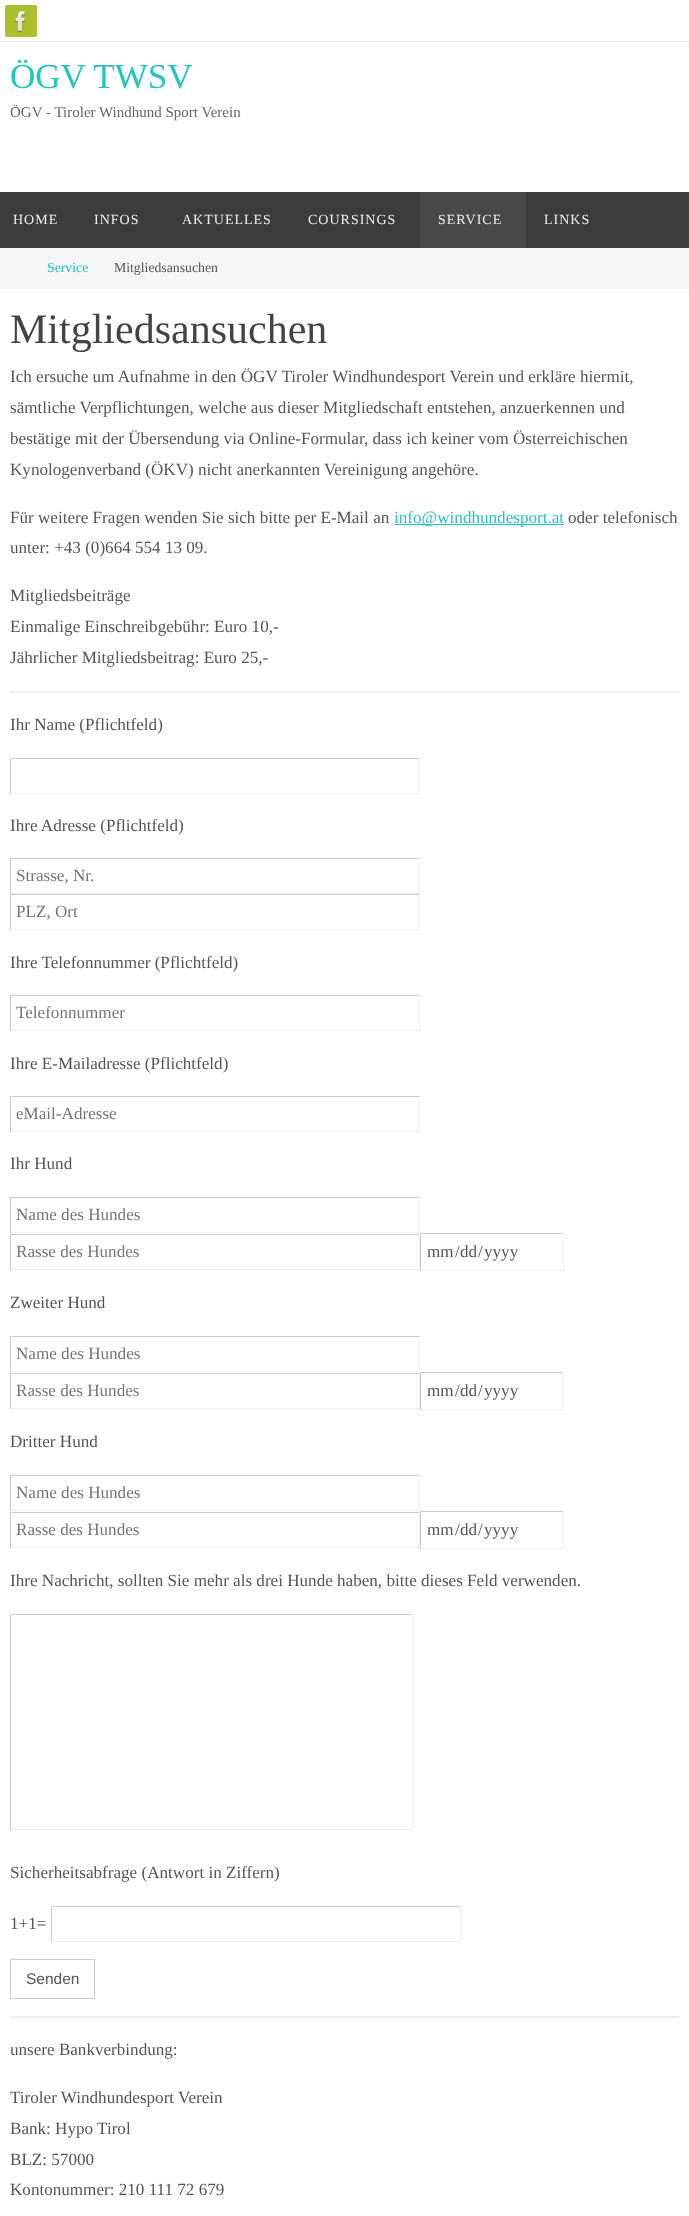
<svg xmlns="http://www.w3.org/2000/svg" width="689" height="2216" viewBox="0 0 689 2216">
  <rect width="100%" height="100%" fill="rgb(255,255,255)"/>
  <rect x="0" y="41" width="689" height="1" fill="rgb(235,235,235)"/>
  <rect x="5" y="5" width="32" height="32" rx="2" fill="rgb(173,191,45)"/>
  <image x="14" y="11" width="12" height="22" href="pic1.png"/>
  <text x="10" y="88" font-family="Liberation Serif" font-size="35" fill="rgb(30,200,187)">ÖGV TWSV</text>
  <text x="10" y="117" font-family="Liberation Serif" font-size="15" fill="rgb(102,102,102)">ÖGV - Tiroler Windhund Sport Verein</text>
  <rect x="0" y="192" width="689" height="56" fill="rgb(58,59,61)"/>
  <g font-family="Liberation Serif" font-size="14" letter-spacing="1" fill="rgb(238,238,238)">
    <text x="13" y="224">HOME</text>
    <text x="94" y="224">INFOS</text>
    <text x="182" y="224">AKTUELLES</text>
    <text x="308" y="224">COURSINGS</text>
  </g>
  <rect x="420" y="192" width="106" height="56" fill="rgb(71,72,74)"/>
  <g font-family="Liberation Serif" font-size="14" letter-spacing="1" fill="rgb(238,238,238)">
    <text x="438" y="224">SERVICE</text>
    <text x="544" y="224">LINKS</text>
  </g>
  <rect x="0" y="248" width="689" height="41" fill="rgb(245,245,245)"/>
  <text x="47" y="272" font-family="Liberation Serif" font-size="13.75" fill="rgb(30,200,187)">Service</text>
  <text x="114" y="272" font-family="Liberation Serif" font-size="13.75" fill="rgb(85,85,85)">Mitgliedsansuchen</text>
  <text x="10" y="343" font-family="Liberation Serif" font-size="42" fill="rgb(68,68,68)">Mitgliedsansuchen</text>
  <g font-family="Liberation Serif" font-size="17.1" fill="rgb(85,85,85)">
    <text>
      <tspan x="10" y="382">Ich ersuche um Aufnahme in den ÖGV Tiroler Windhundesport Verein und erkläre hiermit,</tspan>
      <tspan x="10" y="413">sämtliche Verpflichtungen, welche aus dieser Mitgliedschaft entstehen, anzuerkennen und</tspan>
      <tspan x="10" y="444">bestätige mit der Übersendung via Online-Formular, dass ich keiner vom Österreichischen</tspan>
      <tspan x="10" y="475">Kynologenverband (ÖKV) nicht anerkannten Vereinigung angehöre.</tspan>
    </text>
    <text x="10" y="523">Für weitere Fragen wenden Sie sich bitte per E-Mail an</text>
  </g>
  <rect x="394" y="524" width="170" height="1" fill="rgb(30,200,187)"/>
  <text x="394" y="523" font-family="Liberation Serif" font-size="17.1" fill="rgb(30,200,187)">info@windhundesport.at</text>
  <g font-family="Liberation Serif" font-size="17.1" fill="rgb(85,85,85)">
    <text x="568" y="523">oder telefonisch</text>
    <text x="10" y="553">unter: +43 (0)664 554 13 09.</text>
    <text>
      <tspan x="10" y="601">Mitgliedsbeiträge</tspan>
      <tspan x="10" y="632">Einmalige Einschreibgebühr: Euro 10,-</tspan>
      <tspan x="10" y="663">Jährlicher Mitgliedsbeitrag: Euro 25,-</tspan>
    </text>
  </g>
  <rect x="10" y="691" width="669" height="2" fill="rgb(238,238,238)"/>
  <text x="10" y="730" font-family="Liberation Serif" font-size="17.1" fill="rgb(85,85,85)">Ihr Name (Pflichtfeld)</text>
  <rect x="10" y="758" width="410" height="1" fill="rgb(204,204,204)"/>
  <rect x="419" y="758" width="1" height="36" fill="rgb(238,238,238)"/>
  <rect x="10" y="793" width="410" height="1" fill="rgb(238,238,238)"/>
  <rect x="10" y="758" width="1" height="36" fill="rgb(204,204,204)"/>
  <text x="10" y="831" font-family="Liberation Serif" font-size="17.1" fill="rgb(85,85,85)">Ihre Adresse (Pflichtfeld)</text>
  <rect x="10" y="858" width="410" height="1" fill="rgb(204,204,204)"/>
  <rect x="419" y="858" width="1" height="36" fill="rgb(238,238,238)"/>
  <rect x="10" y="893" width="410" height="1" fill="rgb(238,238,238)"/>
  <rect x="10" y="858" width="1" height="36" fill="rgb(204,204,204)"/>
  <text x="16" y="881" font-family="Liberation Serif" font-size="17.1" fill="rgb(117,117,117)">Strasse, Nr.</text>
  <rect x="10" y="894" width="410" height="1" fill="rgb(204,204,204)"/>
  <rect x="419" y="894" width="1" height="36" fill="rgb(238,238,238)"/>
  <rect x="10" y="929" width="410" height="1" fill="rgb(238,238,238)"/>
  <rect x="10" y="894" width="1" height="36" fill="rgb(204,204,204)"/>
  <text x="16" y="917" font-family="Liberation Serif" font-size="17.1" fill="rgb(117,117,117)">PLZ, Ort</text>
  <text x="10" y="968" font-family="Liberation Serif" font-size="17.1" fill="rgb(85,85,85)">Ihre Telefonnummer (Pflichtfeld)</text>
  <rect x="10" y="995" width="410" height="1" fill="rgb(204,204,204)"/>
  <rect x="419" y="995" width="1" height="36" fill="rgb(238,238,238)"/>
  <rect x="10" y="1030" width="410" height="1" fill="rgb(238,238,238)"/>
  <rect x="10" y="995" width="1" height="36" fill="rgb(204,204,204)"/>
  <text x="16" y="1018" font-family="Liberation Serif" font-size="17.1" fill="rgb(117,117,117)">Telefonnummer</text>
  <text x="10" y="1069" font-family="Liberation Serif" font-size="17.1" fill="rgb(85,85,85)">Ihre E-Mailadresse (Pflichtfeld)</text>
  <rect x="10" y="1096" width="410" height="1" fill="rgb(204,204,204)"/>
  <rect x="419" y="1096" width="1" height="36" fill="rgb(238,238,238)"/>
  <rect x="10" y="1131" width="410" height="1" fill="rgb(238,238,238)"/>
  <rect x="10" y="1096" width="1" height="36" fill="rgb(204,204,204)"/>
  <text x="16" y="1119" font-family="Liberation Serif" font-size="17.1" fill="rgb(117,117,117)">eMail-Adresse</text>
  <text x="10" y="1169" font-family="Liberation Serif" font-size="17.1" fill="rgb(85,85,85)">Ihr Hund</text>
  <rect x="10" y="1197" width="410" height="1" fill="rgb(204,204,204)"/>
  <rect x="419" y="1197" width="1" height="36" fill="rgb(238,238,238)"/>
  <rect x="10" y="1232" width="410" height="1" fill="rgb(238,238,238)"/>
  <rect x="10" y="1197" width="1" height="36" fill="rgb(204,204,204)"/>
  <text x="16" y="1220" font-family="Liberation Serif" font-size="17.1" fill="rgb(117,117,117)">Name des Hundes</text>
  <rect x="10" y="1234" width="410" height="1" fill="rgb(204,204,204)"/>
  <rect x="419" y="1234" width="1" height="36" fill="rgb(238,238,238)"/>
  <rect x="10" y="1269" width="410" height="1" fill="rgb(238,238,238)"/>
  <rect x="10" y="1234" width="1" height="36" fill="rgb(204,204,204)"/>
  <text x="16" y="1257" font-family="Liberation Serif" font-size="17.1" fill="rgb(117,117,117)">Rasse des Hundes</text>
  <rect x="420" y="1233" width="144" height="1" fill="rgb(204,204,204)"/>
  <rect x="563" y="1233" width="1" height="38" fill="rgb(238,238,238)"/>
  <rect x="420" y="1270" width="144" height="1" fill="rgb(238,238,238)"/>
  <rect x="420" y="1233" width="1" height="38" fill="rgb(204,204,204)"/>
  <g font-family="Liberation Serif" font-size="17.1" fill="rgb(85,85,85)">
    <text x="427" y="1257">mm</text>
    <text x="455" y="1257">/</text>
    <text x="460" y="1257">dd</text>
    <text x="478" y="1257">/</text>
    <text x="484" y="1257">yyyy</text>
    <text x="10" y="1308">Zweiter Hund</text>
  </g>
  <rect x="10" y="1336" width="410" height="1" fill="rgb(204,204,204)"/>
  <rect x="419" y="1336" width="1" height="36" fill="rgb(238,238,238)"/>
  <rect x="10" y="1371" width="410" height="1" fill="rgb(238,238,238)"/>
  <rect x="10" y="1336" width="1" height="36" fill="rgb(204,204,204)"/>
  <text x="16" y="1359" font-family="Liberation Serif" font-size="17.1" fill="rgb(117,117,117)">Name des Hundes</text>
  <rect x="10" y="1373" width="410" height="1" fill="rgb(204,204,204)"/>
  <rect x="419" y="1373" width="1" height="36" fill="rgb(238,238,238)"/>
  <rect x="10" y="1408" width="410" height="1" fill="rgb(238,238,238)"/>
  <rect x="10" y="1373" width="1" height="36" fill="rgb(204,204,204)"/>
  <text x="16" y="1396" font-family="Liberation Serif" font-size="17.1" fill="rgb(117,117,117)">Rasse des Hundes</text>
  <rect x="420" y="1372" width="144" height="1" fill="rgb(204,204,204)"/>
  <rect x="563" y="1372" width="1" height="38" fill="rgb(238,238,238)"/>
  <rect x="420" y="1409" width="144" height="1" fill="rgb(238,238,238)"/>
  <rect x="420" y="1372" width="1" height="38" fill="rgb(204,204,204)"/>
  <g font-family="Liberation Serif" font-size="17.1" fill="rgb(85,85,85)">
    <text x="427" y="1396">mm</text>
    <text x="455" y="1396">/</text>
    <text x="460" y="1396">dd</text>
    <text x="478" y="1396">/</text>
    <text x="484" y="1396">yyyy</text>
    <text x="10" y="1447">Dritter Hund</text>
  </g>
  <rect x="10" y="1475" width="410" height="1" fill="rgb(204,204,204)"/>
  <rect x="419" y="1475" width="1" height="36" fill="rgb(238,238,238)"/>
  <rect x="10" y="1510" width="410" height="1" fill="rgb(238,238,238)"/>
  <rect x="10" y="1475" width="1" height="36" fill="rgb(204,204,204)"/>
  <text x="16" y="1498" font-family="Liberation Serif" font-size="17.1" fill="rgb(117,117,117)">Name des Hundes</text>
  <rect x="10" y="1512" width="410" height="1" fill="rgb(204,204,204)"/>
  <rect x="419" y="1512" width="1" height="36" fill="rgb(238,238,238)"/>
  <rect x="10" y="1547" width="410" height="1" fill="rgb(238,238,238)"/>
  <rect x="10" y="1512" width="1" height="36" fill="rgb(204,204,204)"/>
  <text x="16" y="1535" font-family="Liberation Serif" font-size="17.1" fill="rgb(117,117,117)">Rasse des Hundes</text>
  <rect x="420" y="1511" width="144" height="1" fill="rgb(204,204,204)"/>
  <rect x="563" y="1511" width="1" height="38" fill="rgb(238,238,238)"/>
  <rect x="420" y="1548" width="144" height="1" fill="rgb(238,238,238)"/>
  <rect x="420" y="1511" width="1" height="38" fill="rgb(204,204,204)"/>
  <g font-family="Liberation Serif" font-size="17.1" fill="rgb(85,85,85)">
    <text x="427" y="1535">mm</text>
    <text x="455" y="1535">/</text>
    <text x="460" y="1535">dd</text>
    <text x="478" y="1535">/</text>
    <text x="484" y="1535">yyyy</text>
    <text x="10" y="1586">Ihre Nachricht, sollten Sie mehr als drei Hunde haben, bitte dieses Feld verwenden.</text>
  </g>
  <rect x="10" y="1614" width="403" height="1" fill="rgb(204,204,204)"/>
  <rect x="412" y="1614" width="1" height="216" fill="rgb(238,238,238)"/>
  <rect x="10" y="1829" width="403" height="1" fill="rgb(238,238,238)"/>
  <rect x="10" y="1614" width="1" height="216" fill="rgb(204,204,204)"/>
  <g font-family="Liberation Serif" font-size="17.1" fill="rgb(85,85,85)">
    <text x="10" y="1878">Sicherheitsabfrage (Antwort in Ziffern)</text>
    <text x="10" y="1929">1+1=</text>
  </g>
  <rect x="51" y="1906" width="410" height="1" fill="rgb(204,204,204)"/>
  <rect x="460" y="1906" width="1" height="36" fill="rgb(238,238,238)"/>
  <rect x="51" y="1941" width="410" height="1" fill="rgb(238,238,238)"/>
  <rect x="51" y="1906" width="1" height="36" fill="rgb(204,204,204)"/>
  <rect x="10.5" y="1959.5" width="84" height="39" fill="none" stroke="rgb(204,204,204)"/>
  <text x="26" y="1984" font-family="Liberation Sans" font-size="15.5" fill="rgb(85,85,85)">Senden</text>
  <rect x="10" y="2016" width="669" height="2" fill="rgb(238,238,238)"/>
  <g font-family="Liberation Serif" font-size="17.1" fill="rgb(85,85,85)">
    <text x="10" y="2055">unsere Bankverbindung:</text>
    <text>
      <tspan x="10" y="2103">Tiroler Windhundesport Verein</tspan>
      <tspan x="10" y="2134">Bank: Hypo Tirol</tspan>
      <tspan x="10" y="2165">BLZ: 57000</tspan>
      <tspan x="10" y="2195">Kontonummer: 210 111 72 679</tspan>
    </text>
  </g>
</svg>
